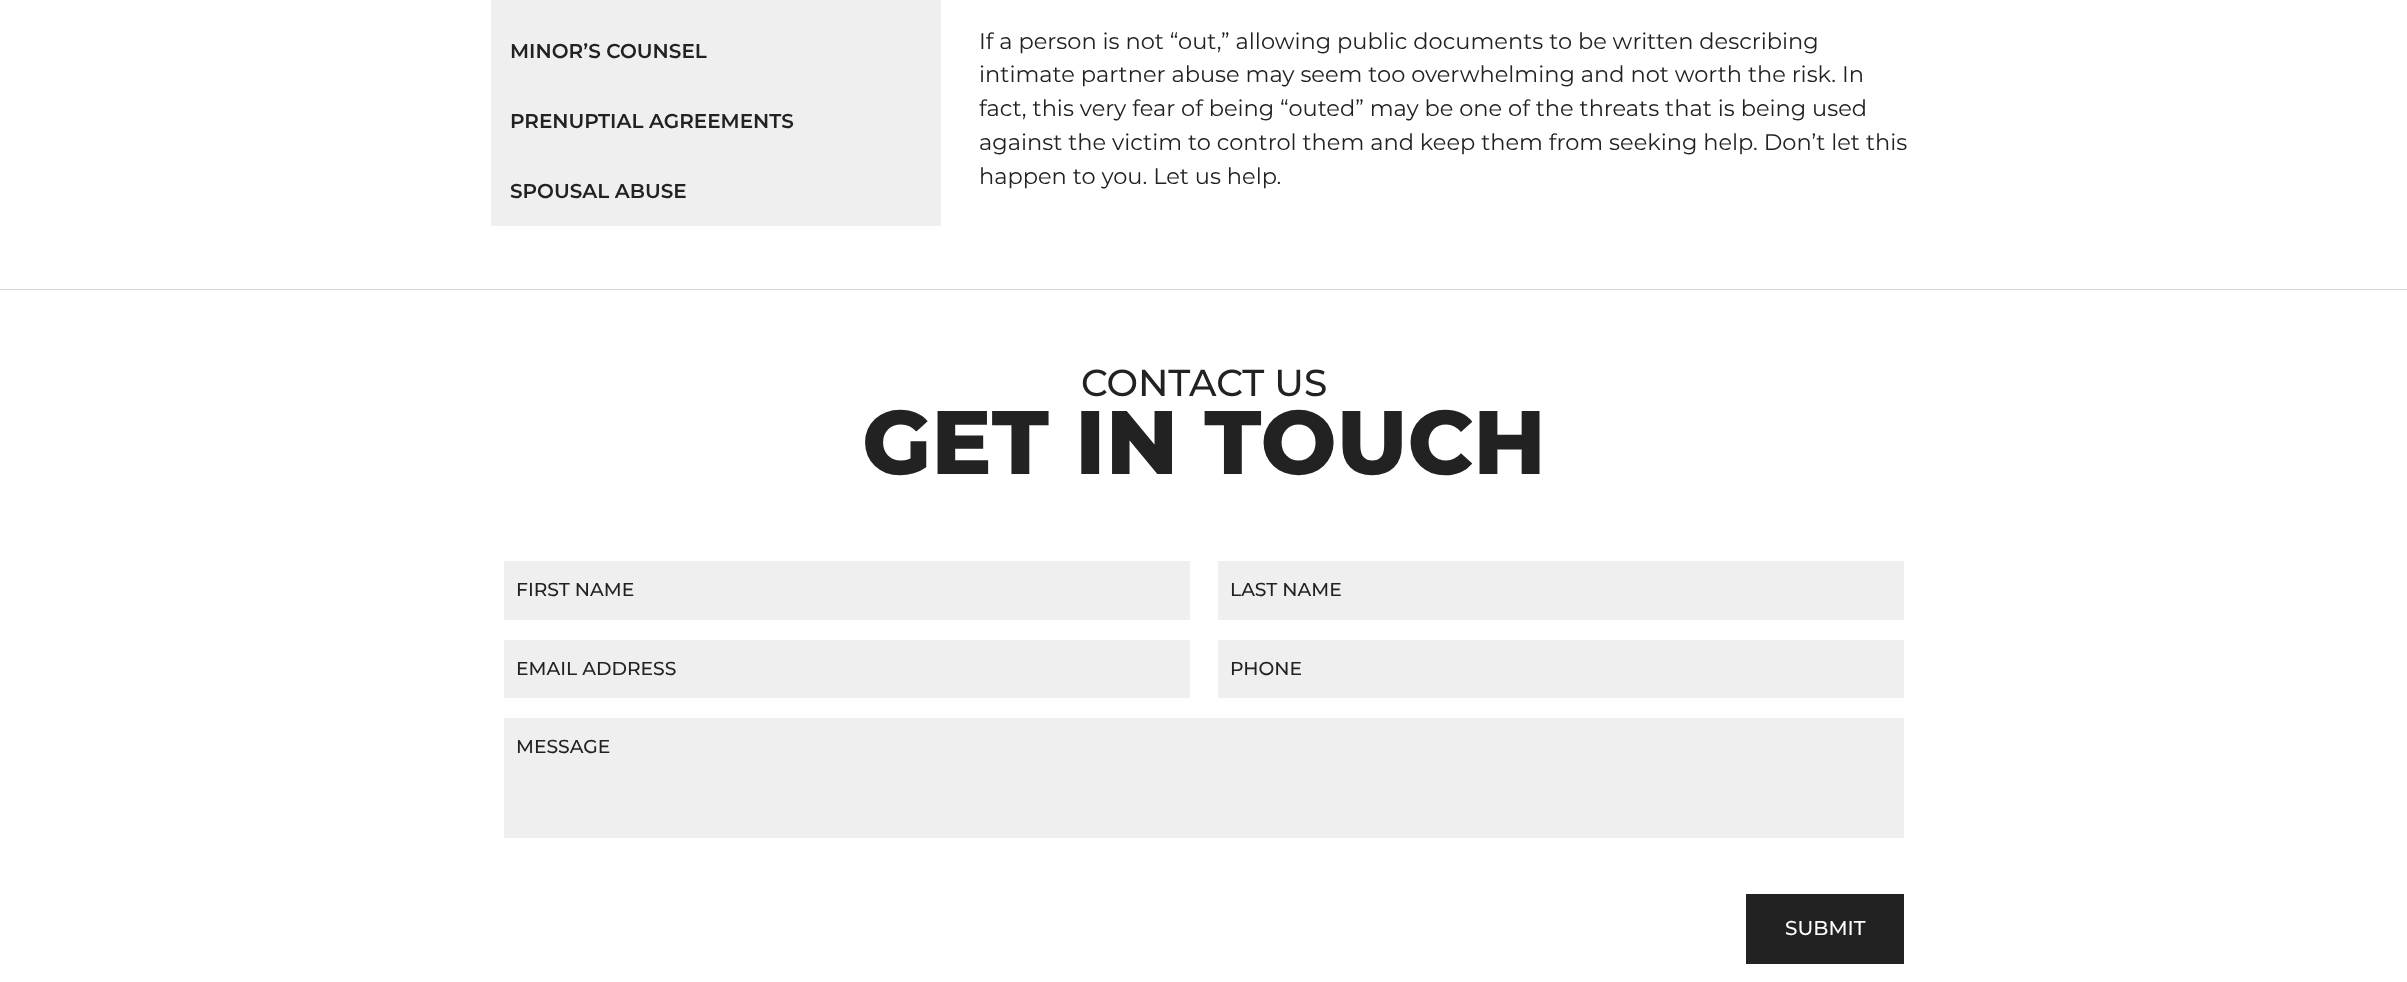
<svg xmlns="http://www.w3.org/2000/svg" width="2407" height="982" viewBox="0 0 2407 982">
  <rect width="100%" height="100%" fill="rgb(255,255,255)"/>
  <rect x="0" y="289" width="2407" height="1" fill="rgb(217,217,217)"/>
  <rect x="491" y="0" width="450" height="226" fill="rgb(239,239,239)"/>
  <g font-family="Montserrat" font-size="20" font-weight="600" fill="rgb(34,34,34)">
    <text x="510" y="58">MINOR’S COUNSEL</text>
    <text x="510" y="128">PRENUPTIAL AGREEMENTS</text>
    <text x="510" y="198">SPOUSAL ABUSE</text>
  </g>
  <g font-family="Montserrat" font-size="22.5" fill="rgb(34,34,34)">
    <text>
      <tspan x="979" y="49">If a person is not “out,” allowing public documents to be written describing</tspan>
      <tspan x="979" y="82">intimate partner abuse may seem too overwhelming and not worth the risk. In</tspan>
      <tspan x="979" y="116">fact, this very fear of being “outed” may be one of the threats that is being used</tspan>
      <tspan x="979" y="150">against the victim to control them and keep them from seeking help. Don’t let this</tspan>
      <tspan x="979" y="184">happen to you. Let us help.</tspan>
    </text>
  </g>
  <text x="1081" y="396" font-family="Montserrat" font-size="37.5" font-weight="500" fill="rgb(34,34,34)">CONTACT US</text>
  <text x="862" y="474" font-family="Montserrat" font-size="90" font-weight="800" fill="rgb(34,34,34)">GET IN TOUCH</text>
  <rect x="504" y="561" width="686" height="59" fill="rgb(239,239,239)"/>
  <text x="516" y="596" font-family="Montserrat" font-size="18.75" font-weight="500" fill="rgb(34,34,34)">FIRST NAME</text>
  <rect x="1218" y="561" width="686" height="59" fill="rgb(239,239,239)"/>
  <text x="1230" y="596" font-family="Montserrat" font-size="18.75" font-weight="500" fill="rgb(34,34,34)">LAST NAME</text>
  <rect x="504" y="640" width="686" height="58" fill="rgb(239,239,239)"/>
  <text x="516" y="675" font-family="Montserrat" font-size="18.75" font-weight="500" fill="rgb(34,34,34)">EMAIL ADDRESS</text>
  <rect x="1218" y="640" width="686" height="58" fill="rgb(239,239,239)"/>
  <text x="1230" y="675" font-family="Montserrat" font-size="18.75" font-weight="500" fill="rgb(34,34,34)">PHONE</text>
  <rect x="504" y="718" width="1400" height="120" fill="rgb(239,239,239)"/>
  <text x="516" y="753" font-family="Montserrat" font-size="18.75" font-weight="500" fill="rgb(34,34,34)">MESSAGE</text>
  <rect x="1746" y="894" width="158" height="70" fill="rgb(34,34,34)"/>
  <text x="1785" y="935" font-family="Montserrat" font-size="20" font-weight="500" fill="rgb(255,255,255)">SUBMIT</text>
</svg>
